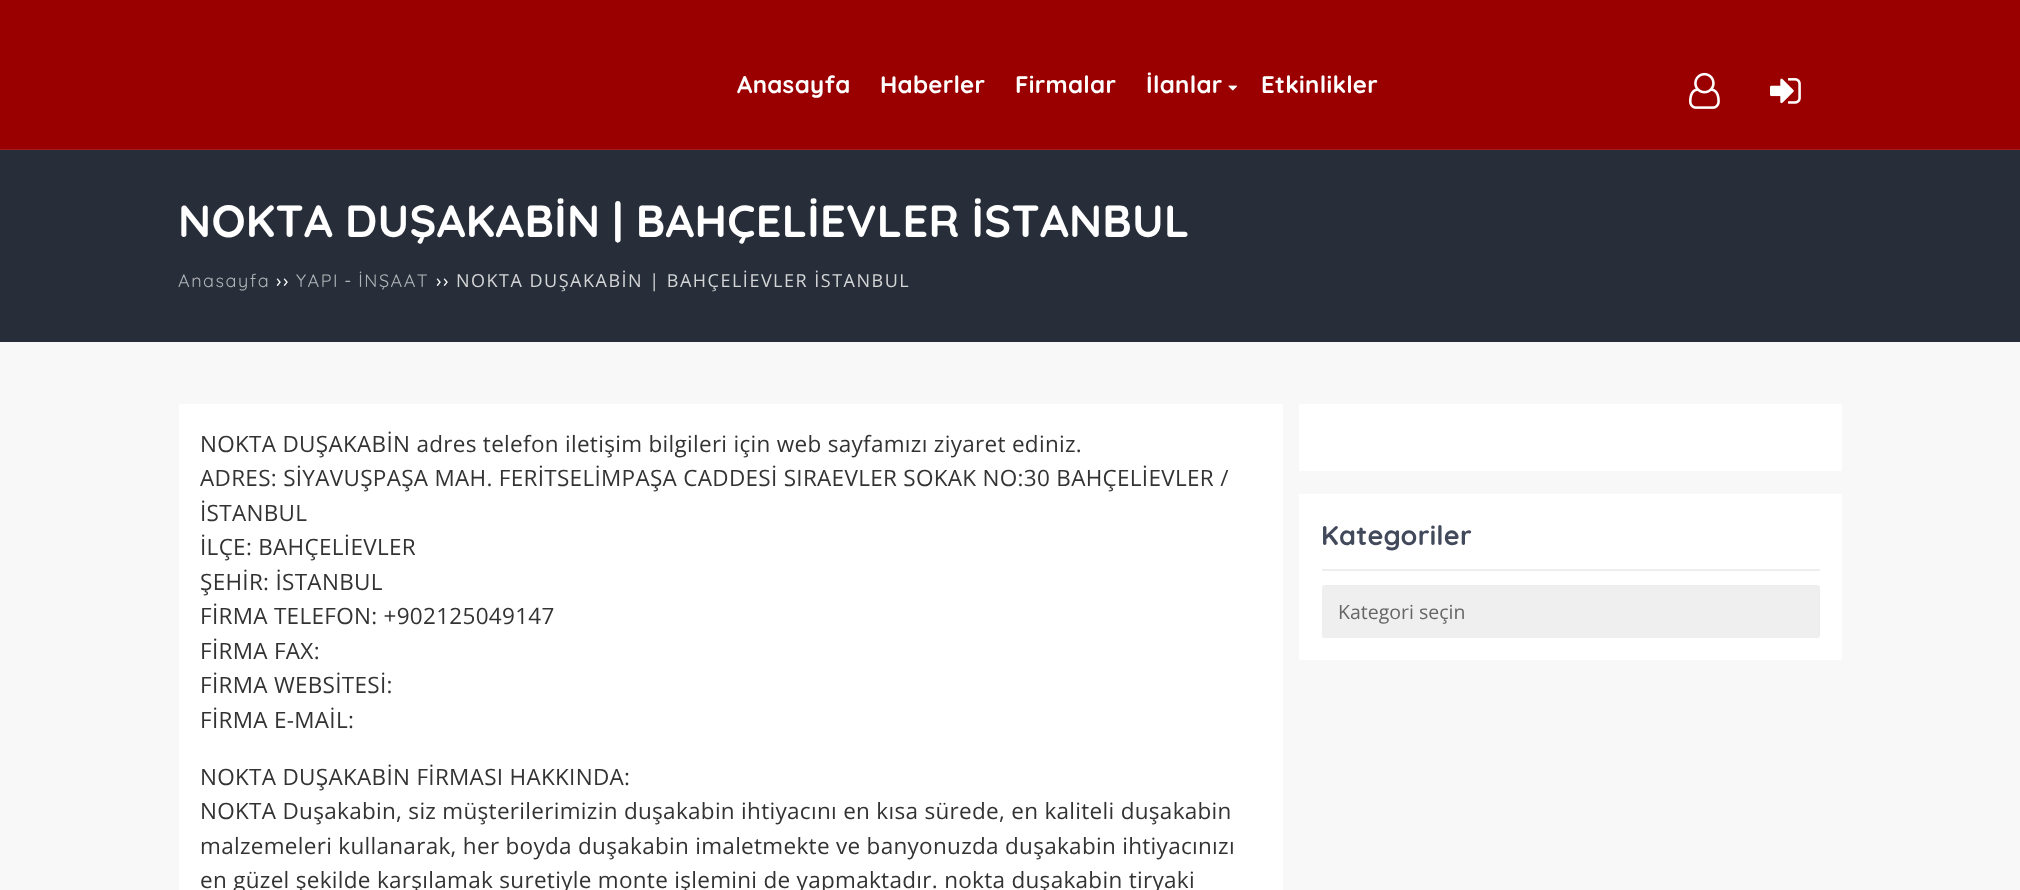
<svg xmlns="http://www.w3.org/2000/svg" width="2020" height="890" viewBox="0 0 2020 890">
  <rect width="100%" height="100%" fill="rgb(248,248,248)"/>
  <rect x="0" y="0" width="2020" height="149" fill="rgb(155,0,0)"/>
  <rect x="0" y="149" width="2020" height="1" fill="rgb(165,26,26)"/>
  <g font-family="Quicksand" font-size="24" font-weight="bold" letter-spacing="0.3" fill="rgb(255,255,255)">
    <text x="737" y="93">Anasayfa</text>
    <text x="880" y="93">Haberler</text>
    <text x="1015" y="93">Firmalar</text>
    <text x="1146" y="93">İlanlar</text>
  </g>
  <image x="1228" y="85" width="9" height="6" href="pic1.png"/>
  <text x="1261" y="93" font-family="Quicksand" font-size="24" font-weight="bold" letter-spacing="0.3" fill="rgb(255,255,255)">Etkinlikler</text>
  <image x="1689" y="72" width="31" height="37" href="pic2.png"/>
  <image x="1770" y="78" width="31" height="26" href="pic3.png"/>
  <rect x="0" y="150" width="2020" height="192" fill="rgb(39,46,57)"/>
  <text x="178" y="237" word-spacing="-1" font-family="Quicksand" font-size="45" font-weight="bold" letter-spacing="0.3" fill="rgb(255,255,255)">NOKTA DUŞAKABİN | BAHÇELİEVLER İSTANBUL</text>
  <text x="178" y="287" font-family="Quicksand" font-size="18" letter-spacing="1.5" fill="rgb(177,180,184)">Anasayfa</text>
  <text x="276" y="287" font-family="Open Sans" font-size="18" letter-spacing="1.5" fill="rgb(255,255,255)">››</text>
  <text x="296" y="287" word-spacing="-1" font-family="Quicksand" font-size="18" letter-spacing="1.5" fill="rgb(177,180,184)">YAPI - İNŞAAT</text>
  <text x="436" y="287" font-family="Open Sans" font-size="18" letter-spacing="1.5" fill="rgb(255,255,255)">››</text>
  <text x="456" y="287" font-family="Open Sans" font-size="18" letter-spacing="1.5" fill="rgb(212,213,215)">NOKTA DUŞAKABİN | BAHÇELİEVLER İSTANBUL</text>
  <rect x="179" y="404" width="1104" height="486" fill="rgb(255,255,255)"/>
  <g font-family="Open Sans" font-size="22.5" letter-spacing="0.3" fill="rgb(51,51,51)">
    <text>
      <tspan x="200" y="452">NOKTA DUŞAKABİN adres telefon iletişim bilgileri için web sayfamızı ziyaret ediniz.</tspan>
      <tspan x="200" y="486">ADRES: SİYAVUŞPAŞA MAH. FERİTSELİMPAŞA CADDESİ SIRAEVLER SOKAK NO:30 BAHÇELİEVLER /</tspan>
      <tspan x="200" y="521">İSTANBUL</tspan>
      <tspan x="200" y="555">İLÇE: BAHÇELİEVLER</tspan>
      <tspan x="200" y="590">ŞEHİR: İSTANBUL</tspan>
      <tspan x="200" y="624">FİRMA TELEFON: +902125049147</tspan>
      <tspan x="200" y="659">FİRMA FAX:</tspan>
      <tspan x="200" y="693">FİRMA WEBSİTESİ:</tspan>
      <tspan x="200" y="728">FİRMA E-MAİL:</tspan>
    </text>
    <text>
      <tspan x="200" y="785">NOKTA DUŞAKABİN FİRMASI HAKKINDA:</tspan>
      <tspan x="200" y="819">NOKTA Duşakabin, siz müşterilerimizin duşakabin ihtiyacını en kısa sürede, en kaliteli duşakabin</tspan>
      <tspan x="200" y="854">malzemeleri kullanarak, her boyda duşakabin imaletmekte ve banyonuzda duşakabin ihtiyacınızı</tspan>
      <tspan x="200" y="888">en güzel şekilde karşılamak suretiyle monte işlemini de yapmaktadır. nokta duşakabin tiryaki</tspan>
    </text>
  </g>
  <rect x="1299" y="404" width="543" height="67" fill="rgb(255,255,255)"/>
  <rect x="1299" y="494" width="543" height="166" fill="rgb(255,255,255)"/>
  <rect x="1322" y="569" width="498" height="2" fill="rgb(238,238,238)"/>
  <text x="1321" y="545" font-family="Quicksand" font-size="27" font-weight="bold" letter-spacing="0.3" fill="rgb(65,73,91)">Kategoriler</text>
  <rect x="1323" y="586" width="496" height="51" rx="2" fill="rgb(239,239,239)" stroke="rgb(238,238,238)" stroke-width="2"/>
  <text x="1338" y="619" font-family="Open Sans" font-size="19.5" fill="rgb(102,102,102)">Kategori seçin</text>
</svg>
